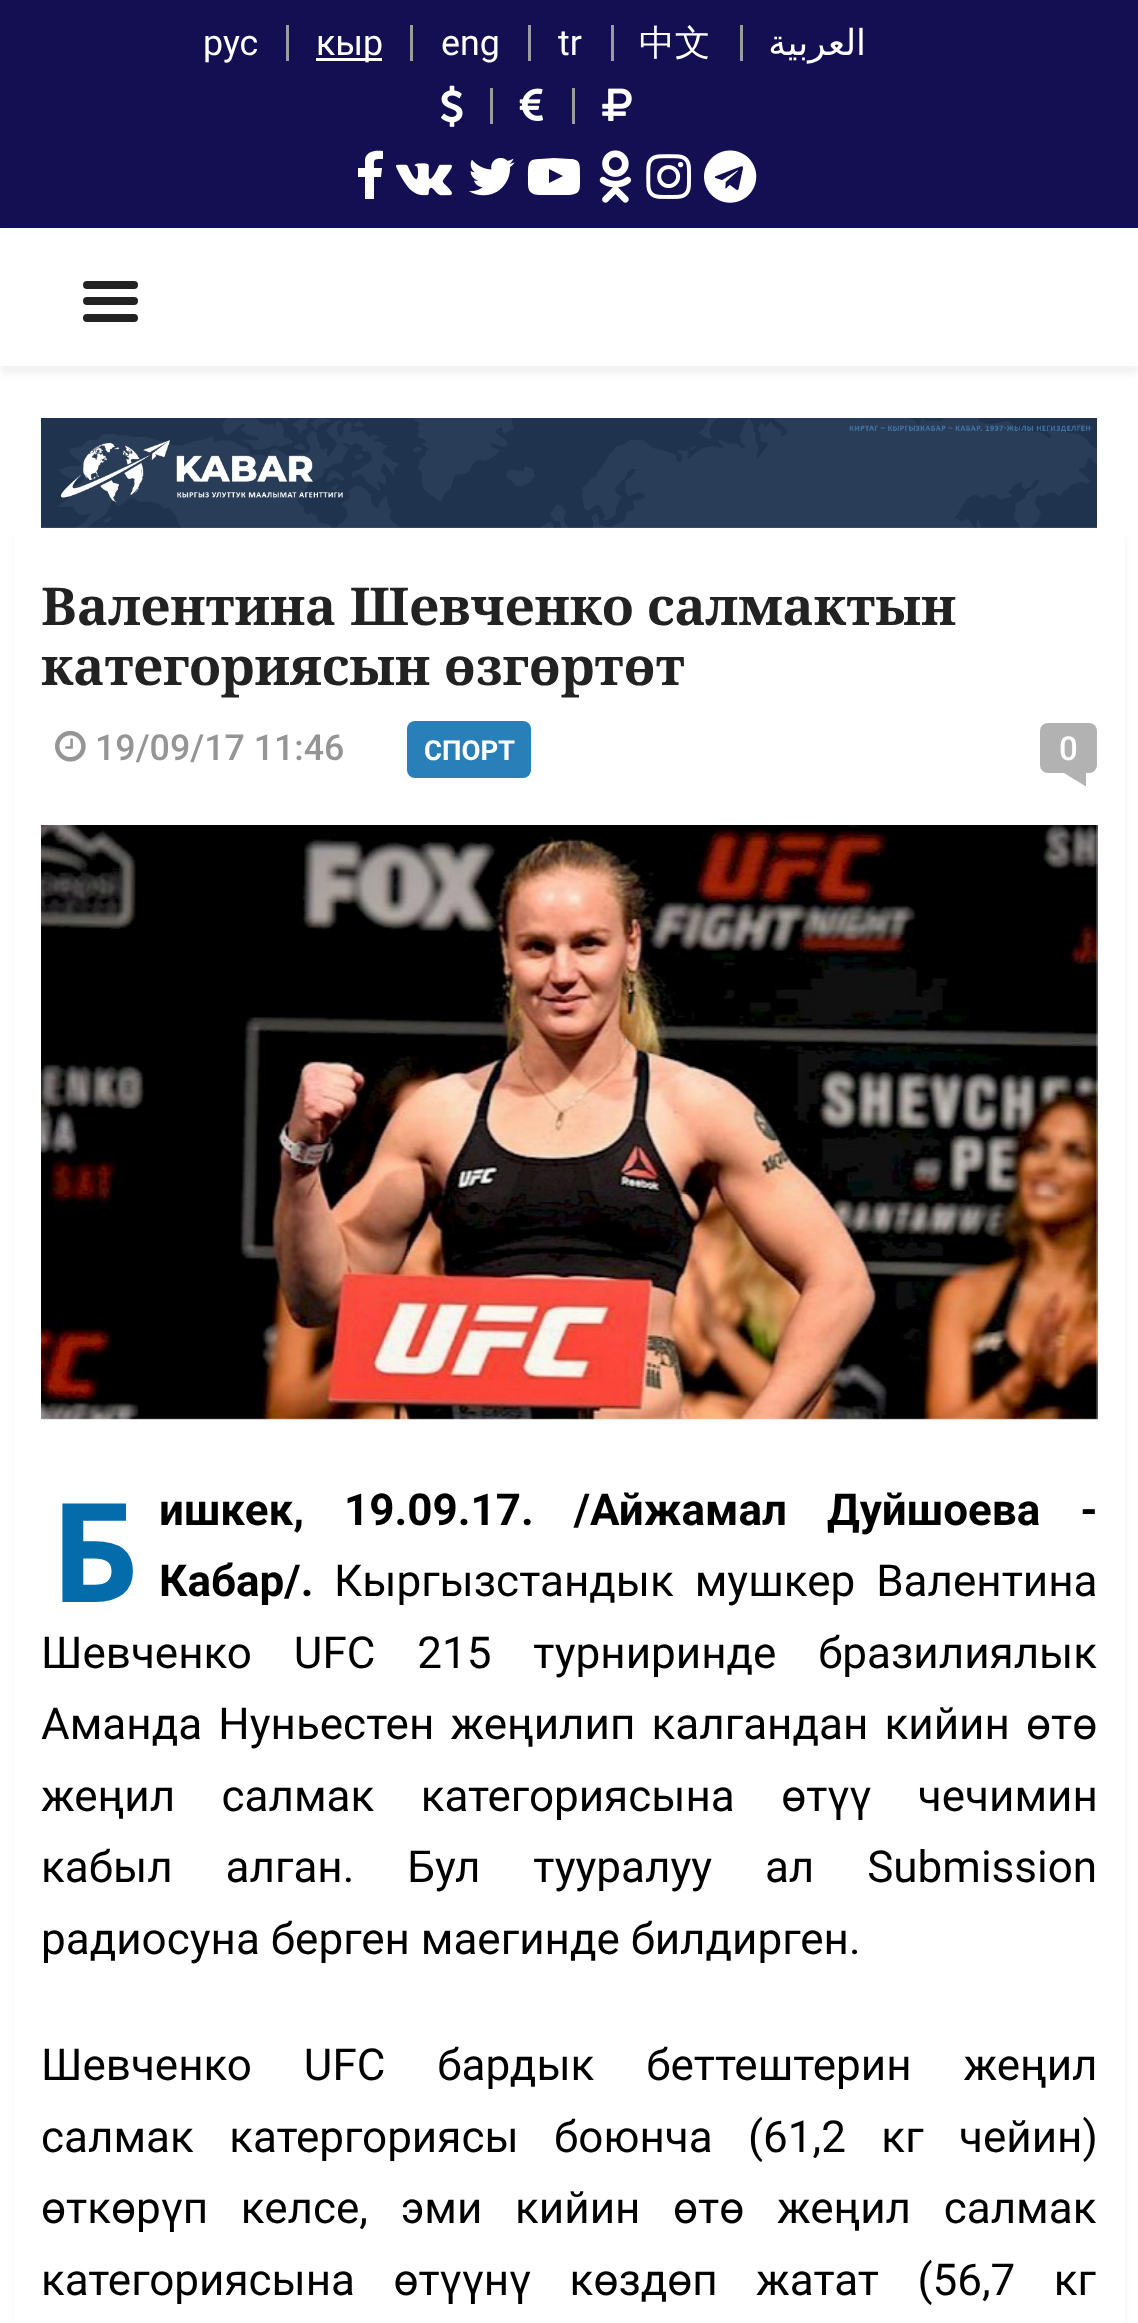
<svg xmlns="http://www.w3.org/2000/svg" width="1138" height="2323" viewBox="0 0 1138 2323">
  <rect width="100%" height="100%" fill="rgb(255,255,255)"/>
  <rect x="0" y="0" width="1138" height="228" fill="rgb(19,15,82)"/>
  <rect x="286" y="25" width="3" height="36" fill="rgb(156,156,156)"/>
  <text x="203" y="55" font-family="Roboto" font-size="35.75" fill="rgb(255,255,255)">рус</text>
  <rect x="410" y="25" width="3" height="36" fill="rgb(156,156,156)"/>
  <rect x="316" y="58" width="66" height="3" fill="rgb(255,255,255)"/>
  <text x="316" y="55" font-family="Roboto" font-size="35.75" fill="rgb(255,255,255)">кыр</text>
  <rect x="528" y="25" width="3" height="36" fill="rgb(156,156,156)"/>
  <text x="441" y="55" font-family="Roboto" font-size="35.75" fill="rgb(255,255,255)">eng</text>
  <rect x="611" y="25" width="3" height="36" fill="rgb(156,156,156)"/>
  <text x="558" y="55" font-family="Roboto" font-size="35.75" fill="rgb(255,255,255)">tr</text>
  <rect x="740" y="25" width="3" height="36" fill="rgb(156,156,156)"/>
  <text x="639" y="55" font-family="WenQuanYi Zen Hei" font-size="35.75" font-weight="500" fill="rgb(255,255,255)">中文</text>
  <text x="866" y="55" font-family="DejaVu Sans" font-size="35.75" direction="rtl" fill="rgb(255,255,255)">العربية</text>
  <rect x="490" y="88" width="3" height="36" fill="rgb(156,156,156)"/>
  <image x="441" y="85" width="22" height="42" href="pic1.png"/>
  <rect x="572" y="88" width="3" height="36" fill="rgb(156,156,156)"/>
  <image x="519" y="88" width="24" height="33" href="pic2.png"/>
  <image x="602" y="88" width="30" height="33" href="pic3.png"/>
  <path d="M383 151V159C373 159 374 159 374 168H382L381 177H374V199H365V177H358V168H365V159C367 151 375 150 383 151Z" fill="rgb(255,255,255)"/>
  <image x="396" y="163" width="56" height="33" href="pic4.png"/>
  <image x="469" y="157" width="46" height="39" href="pic5.png"/>
  <path d="M549 183L563 176L549 169ZM554 158L570 159C581 159 580 165 580 177C580 190 581 194 569 195H539C527 194 528 188 528 177C528 163 528 159 540 159Z" fill="rgb(255,255,255)"/>
  <image x="599" y="150" width="33" height="53" href="pic6.png"/>
  <image x="646" y="154" width="46" height="45" href="pic7.png"/>
  <image x="704" y="150" width="53" height="53" href="pic8.png"/>
  <rect x="0" y="237" width="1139" height="137" fill="rgba(0,0,0,0.05)" filter="blur(3px)"/>
  <rect x="0" y="234" width="1138" height="132" fill="rgb(255,255,255)"/>
  <rect x="83" y="281" width="55" height="8" rx="4" fill="rgb(34,34,34)"/>
  <rect x="83" y="297" width="55" height="8" rx="4" fill="rgb(34,34,34)"/>
  <rect x="83" y="314" width="55" height="8" rx="4" fill="rgb(34,34,34)"/>
  <image x="41" y="418" width="1056" height="110" href="pic9.png"/>
  <rect x="14" y="536" width="1111" height="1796" fill="rgba(0,0,0,0.05)" filter="blur(3px)"/>
  <rect x="14" y="533" width="1111" height="1790" fill="rgb(255,255,255)"/>
  <g font-family="Noto Serif" font-size="52.25" font-weight="bold" fill="rgb(34,34,34)">
    <text>
      <tspan x="41" y="625">Валентина Шевченко салмактын</tspan>
      <tspan x="41" y="685">категориясын өзгөртөт</tspan>
    </text>
  </g>
  <image x="55" y="730" width="31" height="32" href="pic10.png"/>
  <text x="95" y="760" font-family="Roboto" font-size="35.75" font-weight="500" fill="rgb(149,149,149)">19/09/17 11:46</text>
  <rect x="407" y="721" width="124" height="57" rx="8" fill="rgb(41,128,185)"/>
  <text x="424" y="760" font-family="Roboto" font-size="27.5" font-weight="bold" fill="rgb(255,255,255)">СПОРТ</text>
  <rect x="1040" y="723" width="57" height="50" rx="8" fill="rgb(178,178,178)"/>
  <text x="1059" y="760" font-family="Roboto" font-size="33" font-weight="500" fill="rgb(255,255,255)">0</text>
  <path d="M1086 773V786.5L1064 773Z" fill="rgb(178,178,178)"/>
  <image x="41" y="825" width="1057" height="595" href="pic11.png"/>
  <text x="50" y="1602" font-family="Noto Sans" font-size="138" font-weight="bold" fill="rgb(4,108,170)">Б</text>
  <g font-family="Roboto" font-size="44" font-weight="bold" fill="rgb(0,0,0)">
    <text>
      <tspan x="159" y="1525" word-spacing="29">ишкек, 19.09.17. /Айжамал Дуйшоева -</tspan>
      <tspan x="159" y="1596">Кабар/.</tspan>
    </text>
  </g>
  <g font-family="Roboto" font-size="44" fill="rgb(0,0,0)">
    <text x="334" y="1596" word-spacing="10">Кыргызстандык мушкер Валентина</text>
    <text>
      <tspan x="41" y="1668" word-spacing="31">Шевченко UFC 215 турниринде бразилиялык</tspan>
      <tspan x="41" y="1739" word-spacing="5.25">Аманда Нуньестен жеңилип калгандан кийин өтө</tspan>
      <tspan x="41" y="1811" word-spacing="35.5">жеңил салмак категориясына өтүү чечимин</tspan>
      <tspan x="41" y="1882" word-spacing="42">кабыл алган. Бул тууралуу ал Submission</tspan>
      <tspan x="41" y="1954">радиосуна берген маегинде билдирген.</tspan>
    </text>
    <text>
      <tspan x="41" y="2080" word-spacing="41">Шевченко UFC бардык беттештерин жеңил</tspan>
      <tspan x="41" y="2152" word-spacing="24.5">салмак катергориясы боюнча (61,2 кг чейин)</tspan>
      <tspan x="41" y="2223" word-spacing="21.75">өткөрүп келсе, эми кийин өтө жеңил салмак</tspan>
      <tspan x="41" y="2295" word-spacing="27.5">категориясына өтүүнү көздөп жатат (56,7 кг</tspan>
    </text>
  </g>
</svg>
